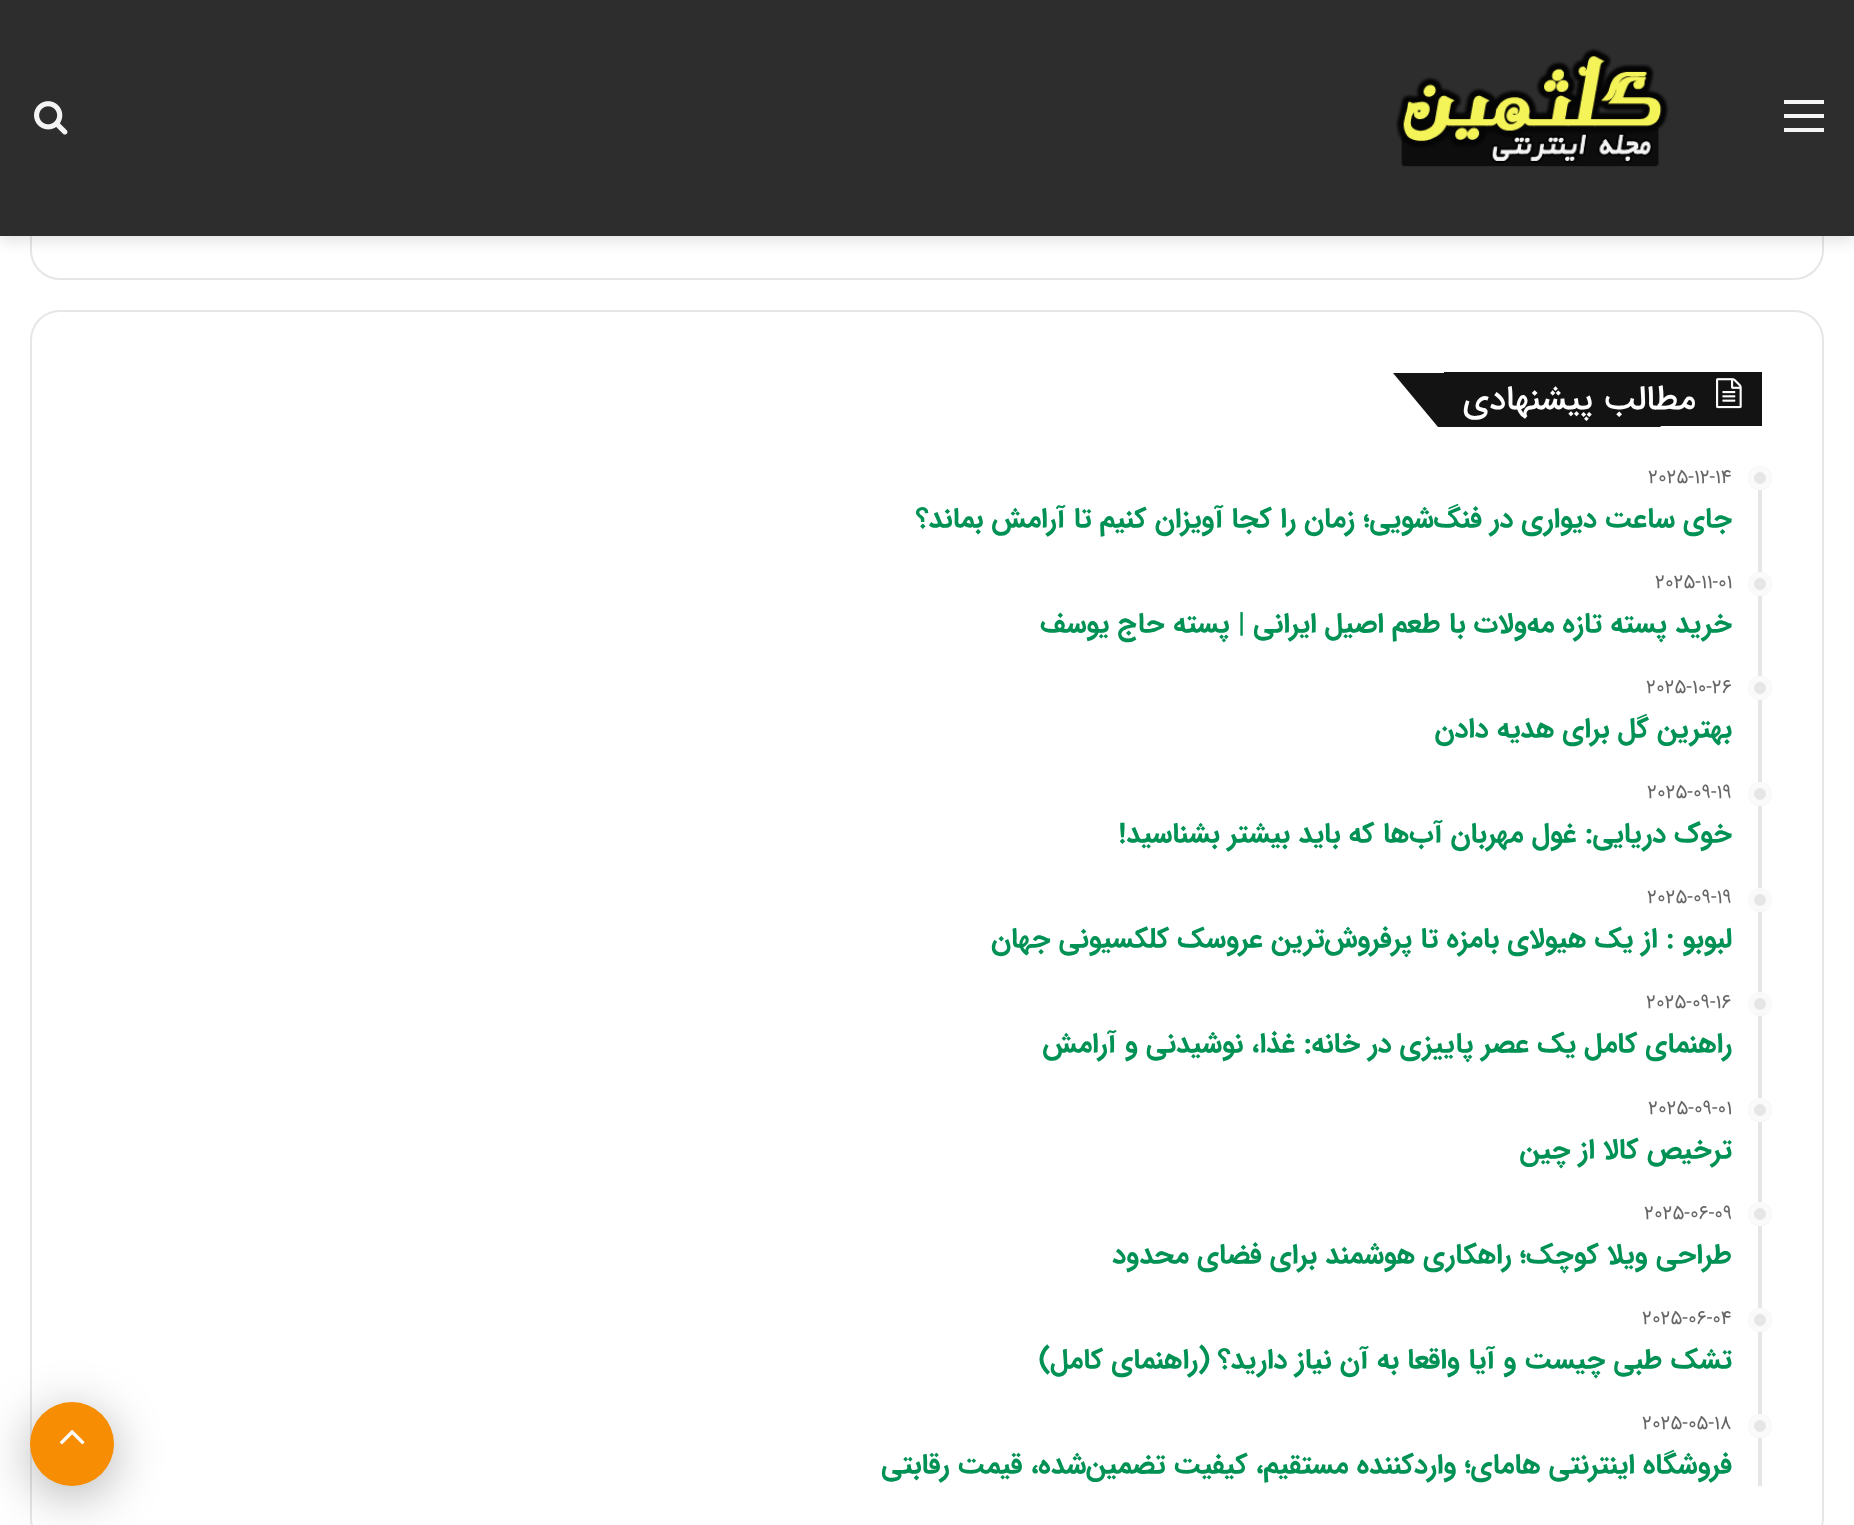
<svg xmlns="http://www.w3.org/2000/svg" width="1854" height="1525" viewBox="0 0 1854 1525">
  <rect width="100%" height="100%" fill="rgb(255,255,255)"/>
  <rect x="31" y="-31" width="1792" height="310" rx="29" fill="none" stroke="rgb(230,230,230)" stroke-width="2"/>
  <rect x="0" y="6" width="1854" height="236" fill="rgba(0,0,0,0.1)" filter="blur(7px)"/>
  <rect x="0" y="0" width="1854" height="236" fill="rgb(45,45,45)"/>
  <rect x="1784" y="114" width="40" height="4" fill="rgb(245,245,245)"/>
  <rect x="1784" y="100" width="40" height="4" fill="rgb(245,245,245)"/>
  <rect x="1784" y="128" width="40" height="4" fill="rgb(245,245,245)"/>
  <image x="1396" y="48" width="273" height="119" href="pic1.png"/>
  <image x="34" y="101" width="34" height="34" href="pic2.png"/>
  <rect x="31" y="311" width="1792" height="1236" rx="29" fill="none" stroke="rgb(230,230,230)" stroke-width="2"/>
  <rect x="1444" y="372" width="318" height="54" fill="rgb(19,19,19)"/>
  <path d="M1393 373H1616L1661 427H1438Z" fill="rgb(19,19,19)"/>
  <image x="1716" y="378" width="26" height="31" href="pic3.png"/>
  <text x="1696" y="409" font-family="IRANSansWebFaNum" font-size="34" font-weight="500" direction="rtl" fill="rgb(255,255,255)">مطالب پیشنهادی</text>
  <rect x="1758" y="466" width="4" height="1020" fill="rgb(230,230,230)"/>
  <circle cx="1760" cy="478" r="12" fill="rgb(230,230,230)"/>
  <circle cx="1760" cy="478" r="9" fill="none" stroke="rgba(255,255,255,0.8)" stroke-width="6"/>
  <text x="1648" y="483" font-family="IRANSansWebFaNum" font-size="20" fill="rgb(102,102,102)">2025-12-14</text>
  <text x="1732" y="527" font-family="IRANSansWebFaNum" font-size="28" font-weight="bold" direction="rtl" fill="rgb(0,145,84)">جای ساعت دیواری در فنگ‌شویی؛ زمان را کجا آویزان کنیم تا آرامش بماند؟</text>
  <circle cx="1760" cy="584" r="12" fill="rgb(230,230,230)"/>
  <circle cx="1760" cy="584" r="9" fill="none" stroke="rgba(255,255,255,0.8)" stroke-width="6"/>
  <text x="1655" y="588" font-family="IRANSansWebFaNum" font-size="20" fill="rgb(102,102,102)">2025-11-01</text>
  <text x="1732" y="632" font-family="IRANSansWebFaNum" font-size="28" font-weight="bold" direction="rtl" fill="rgb(0,145,84)">خرید پسته تازه مه‌ولات با طعم اصیل ایرانی | پسته حاج یوسف</text>
  <circle cx="1760" cy="688" r="12" fill="rgb(230,230,230)"/>
  <circle cx="1760" cy="688" r="9" fill="none" stroke="rgba(255,255,255,0.8)" stroke-width="6"/>
  <text x="1646" y="693" font-family="IRANSansWebFaNum" font-size="20" fill="rgb(102,102,102)">2025-10-26</text>
  <text x="1732" y="737" font-family="IRANSansWebFaNum" font-size="28" font-weight="bold" direction="rtl" fill="rgb(0,145,84)">بهترین گل برای هدیه دادن</text>
  <circle cx="1760" cy="794" r="12" fill="rgb(230,230,230)"/>
  <circle cx="1760" cy="794" r="9" fill="none" stroke="rgba(255,255,255,0.8)" stroke-width="6"/>
  <text x="1647" y="798" font-family="IRANSansWebFaNum" font-size="20" fill="rgb(102,102,102)">2025-09-19</text>
  <text x="1732" y="842" font-family="IRANSansWebFaNum" font-size="28" font-weight="bold" direction="rtl" fill="rgb(0,145,84)">خوک دریایی: غول مهربان آب‌ها که باید بیشتر بشناسید!</text>
  <circle cx="1760" cy="900" r="12" fill="rgb(230,230,230)"/>
  <circle cx="1760" cy="900" r="9" fill="none" stroke="rgba(255,255,255,0.8)" stroke-width="6"/>
  <text x="1647" y="903" font-family="IRANSansWebFaNum" font-size="20" fill="rgb(102,102,102)">2025-09-19</text>
  <text x="1732" y="947" font-family="IRANSansWebFaNum" font-size="28" font-weight="bold" direction="rtl" fill="rgb(0,145,84)">لبوبو : از یک هیولای بامزه تا پرفروش‌ترین عروسک کلکسیونی جهان</text>
  <circle cx="1760" cy="1004" r="12" fill="rgb(230,230,230)"/>
  <circle cx="1760" cy="1004" r="9" fill="none" stroke="rgba(255,255,255,0.8)" stroke-width="6"/>
  <text x="1646" y="1008" font-family="IRANSansWebFaNum" font-size="20" fill="rgb(102,102,102)">2025-09-16</text>
  <text x="1732" y="1052" font-family="IRANSansWebFaNum" font-size="28" font-weight="bold" direction="rtl" fill="rgb(0,145,84)">راهنمای کامل یک عصر پاییزی در خانه: غذا، نوشیدنی و آرامش</text>
  <circle cx="1760" cy="1110" r="12" fill="rgb(230,230,230)"/>
  <circle cx="1760" cy="1110" r="9" fill="none" stroke="rgba(255,255,255,0.8)" stroke-width="6"/>
  <text x="1648" y="1114" font-family="IRANSansWebFaNum" font-size="20" fill="rgb(102,102,102)">2025-09-01</text>
  <text x="1732" y="1158" font-family="IRANSansWebFaNum" font-size="28" font-weight="bold" direction="rtl" fill="rgb(0,145,84)">ترخیص کالا از چین</text>
  <circle cx="1760" cy="1214" r="12" fill="rgb(230,230,230)"/>
  <circle cx="1760" cy="1214" r="9" fill="none" stroke="rgba(255,255,255,0.8)" stroke-width="6"/>
  <text x="1644" y="1219" font-family="IRANSansWebFaNum" font-size="20" fill="rgb(102,102,102)">2025-06-09</text>
  <text x="1732" y="1263" font-family="IRANSansWebFaNum" font-size="28" font-weight="bold" direction="rtl" fill="rgb(0,145,84)">طراحی ویلا کوچک؛ راهکاری هوشمند برای فضای محدود</text>
  <circle cx="1760" cy="1320" r="12" fill="rgb(230,230,230)"/>
  <circle cx="1760" cy="1320" r="9" fill="none" stroke="rgba(255,255,255,0.8)" stroke-width="6"/>
  <text x="1642" y="1324" font-family="IRANSansWebFaNum" font-size="20" fill="rgb(102,102,102)">2025-06-04</text>
  <text x="1732" y="1368" font-family="IRANSansWebFaNum" font-size="28" font-weight="bold" direction="rtl" fill="rgb(0,145,84)">تشک طبی چیست و آیا واقعا به آن نیاز دارید؟ (راهنمای کامل)</text>
  <circle cx="1760" cy="1426" r="12" fill="rgb(230,230,230)"/>
  <circle cx="1760" cy="1426" r="9" fill="none" stroke="rgba(255,255,255,0.8)" stroke-width="6"/>
  <text x="1642" y="1429" font-family="IRANSansWebFaNum" font-size="20" fill="rgb(102,102,102)">2025-05-18</text>
  <text x="1732" y="1473" font-family="IRANSansWebFaNum" font-size="28" font-weight="bold" direction="rtl" fill="rgb(0,145,84)">فروشگاه اینترنتی هامای؛ واردکننده مستقیم، کیفیت تضمین‌شده، قیمت رقابتی</text>
  <rect x="30" y="1412" width="84" height="84" rx="42" fill="rgba(0,0,0,0.3)" filter="blur(25px)"/>
  <circle cx="72" cy="1444" r="42" fill="rgb(247,141,2)"/>
  <image x="59" y="1430" width="26" height="15" href="pic4.png"/>
</svg>
